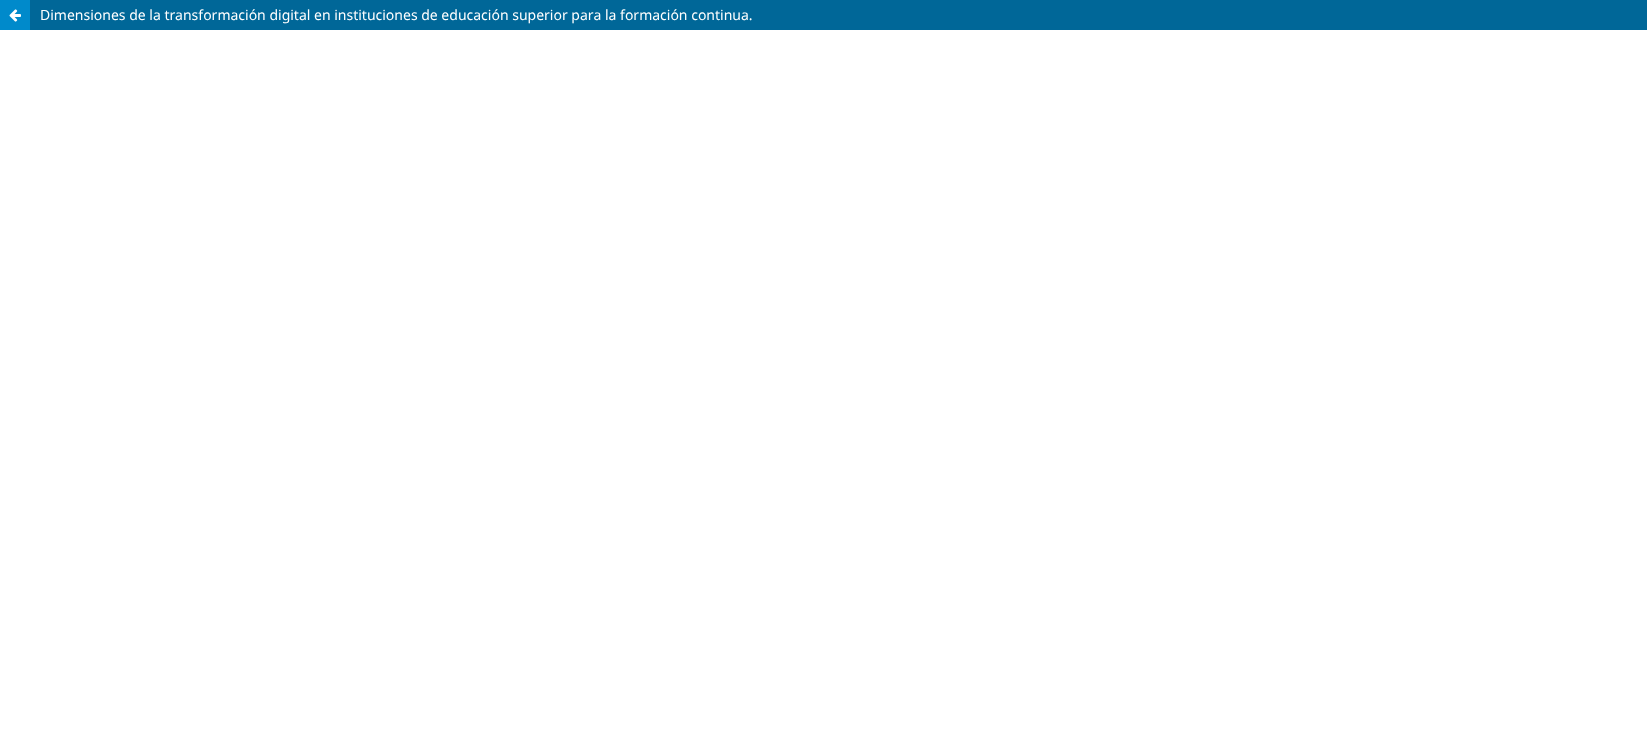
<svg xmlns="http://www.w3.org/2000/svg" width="1647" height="737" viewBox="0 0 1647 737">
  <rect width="100%" height="100%" fill="rgb(255,255,255)"/>
  <rect x="30" y="0" width="1617" height="30" fill="rgb(0,103,152)"/>
  <rect x="0" y="0" width="30" height="30" fill="rgb(0,138,203)"/>
  <image x="9" y="9" width="12" height="13" href="pic1.png"/>
  <text x="40" y="20" font-family="Noto Sans" font-size="14" fill="rgb(255,255,255)">Dimensiones de la transformación digital en instituciones de educación superior para la formación continua.</text>
</svg>
